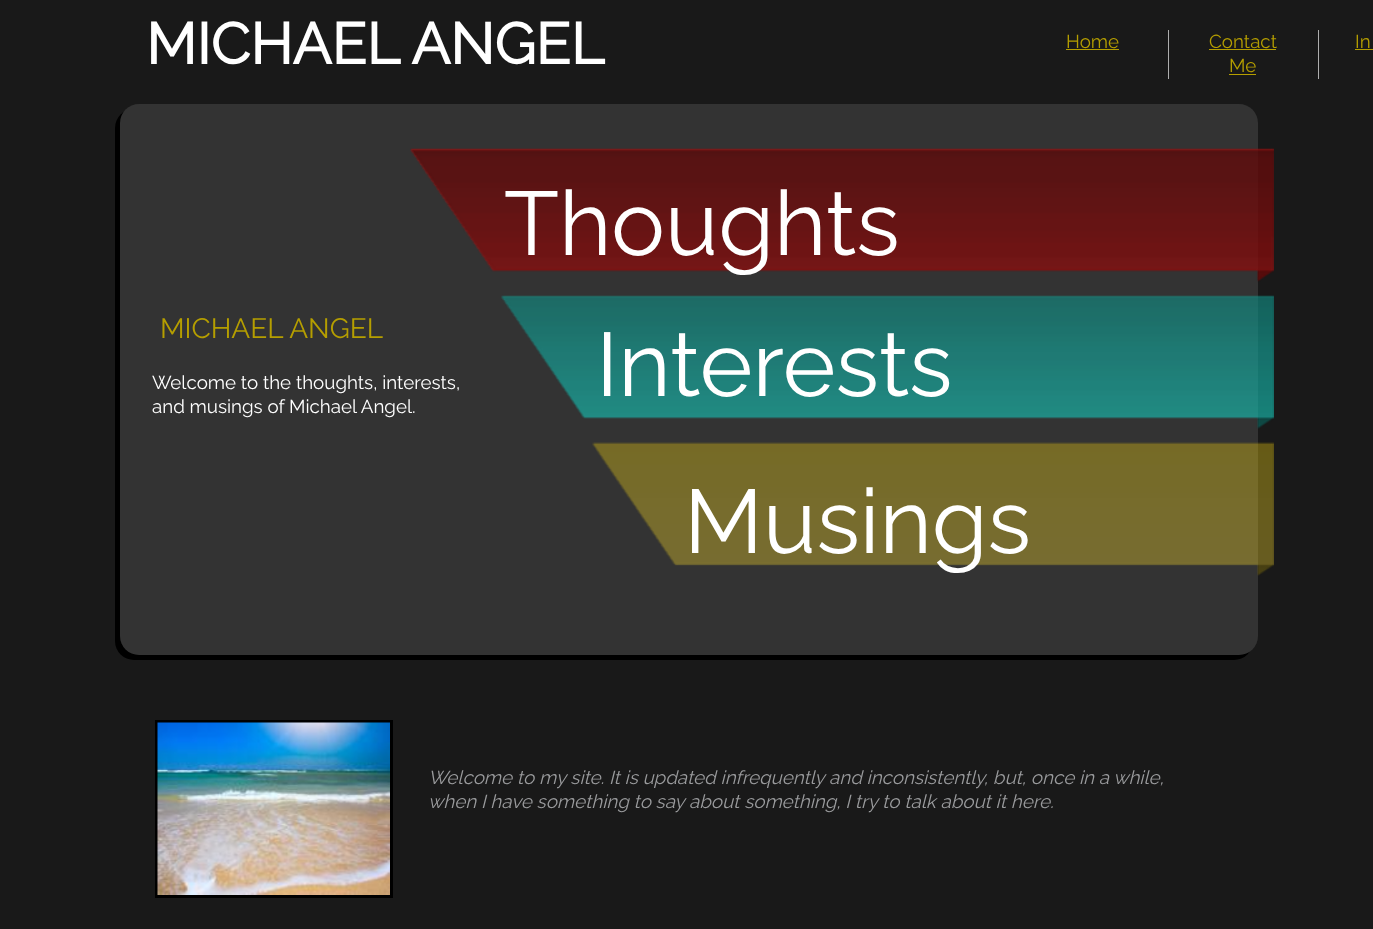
<svg xmlns="http://www.w3.org/2000/svg" width="1373" height="929" viewBox="0 0 1373 929">
  <rect width="100%" height="100%" fill="rgb(25,25,25)"/>
  <text x="146" y="64" font-family="Raleway" font-size="57.5" font-weight="bold" fill="rgb(255,255,255)">MICHAEL ANGEL</text>
  <rect x="1168" y="30" width="1" height="49" fill="rgb(174,174,174)"/>
  <text x="1066" y="48" font-family="Raleway" font-size="18.75" font-weight="100" fill="rgb(181,158,0)">Home</text>
  <rect x="1066" y="49" width="53" height="1" fill="rgb(181,158,0)"/>
  <rect x="1318" y="30" width="1" height="49" fill="rgb(174,174,174)"/>
  <text x="1209" y="48" font-family="Raleway" font-size="18.75" font-weight="100" fill="rgb(181,158,0)">Contact</text>
  <rect x="1209" y="49" width="67" height="1" fill="rgb(181,158,0)"/>
  <text x="1229" y="72" font-family="Raleway" font-size="18.75" font-weight="100" fill="rgb(181,158,0)">Me</text>
  <rect x="1229" y="74" width="27" height="1" fill="rgb(181,158,0)"/>
  <text x="1355" y="48" font-family="Raleway" font-size="18.75" font-weight="100" fill="rgb(181,158,0)">In</text>
  <rect x="1355" y="49" width="18" height="1" fill="rgb(181,158,0)"/>
  <rect x="115" y="109" width="1138" height="551" rx="19" fill="rgb(0,0,0)"/>
  <rect x="120" y="104" width="1138" height="551" rx="19" fill="rgb(51,51,51)"/>
  <image x="410" y="148" width="864" height="428" href="pic1.png"/>
  <text x="504" y="255" font-family="Raleway" font-size="90" font-weight="100" fill="rgb(255,255,255)">Thoughts</text>
  <text x="160" y="338" font-family="Raleway" font-size="28" font-weight="100" fill="rgb(181,158,0)">MICHAEL ANGEL</text>
  <g font-family="Raleway" font-size="18.75" font-weight="100" fill="rgb(255,255,255)">
    <text>
      <tspan x="152" y="389">Welcome to the thoughts, interests,</tspan>
      <tspan x="152" y="413">and musings of Michael Angel.</tspan>
    </text>
  </g>
  <g font-family="Raleway" font-size="90" font-weight="100" fill="rgb(255,255,255)">
    <text x="596" y="396">Interests</text>
    <text x="684" y="553">Musings</text>
  </g>
  <rect x="156.5" y="721.5" width="235" height="175" fill="none" stroke="rgb(0,0,0)" stroke-width="3"/>
  <image x="157" y="722" width="233" height="173" href="pic2.png"/>
  <g font-family="Raleway" font-size="18.75" font-weight="100" font-style="italic" fill="rgb(154,155,157)">
    <text>
      <tspan x="428" y="784">Welcome to my site. It is updated infrequently and inconsistently, but, once in a while,</tspan>
      <tspan x="428" y="808">when I have something to say about something, I try to talk about it here.</tspan>
    </text>
  </g>
</svg>
